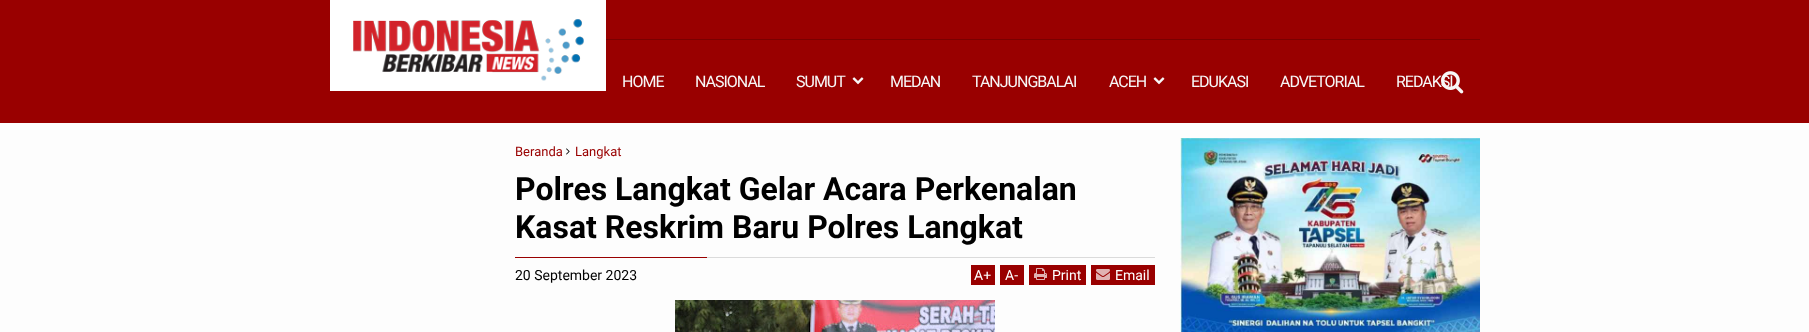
<svg xmlns="http://www.w3.org/2000/svg" width="1809" height="332" viewBox="0 0 1809 332">
  <rect width="100%" height="100%" fill="rgb(253,253,253)"/>
  <rect x="0" y="0" width="1809" height="123" fill="rgb(153,0,0)"/>
  <rect x="330" y="0" width="276" height="91" fill="rgb(255,255,255)"/>
  <image x="353" y="19" width="231" height="62" href="pic1.png"/>
  <rect x="606" y="39" width="874" height="1" fill="rgb(122,0,0)"/>
  <text x="1396" y="87" font-family="Roboto" font-size="16" letter-spacing="-1" fill="rgb(247,247,247)">REDAKSI</text>
  <image x="1441" y="71" width="23" height="23" href="pic2.png"/>
  <g font-family="Roboto" font-size="16" letter-spacing="-1" fill="rgb(247,247,247)">
    <text x="622" y="87">HOME</text>
    <text x="695" y="87">NASIONAL</text>
    <text x="796" y="87">SUMUT</text>
  </g>
  <image x="852" y="77" width="12" height="8" href="pic3.png"/>
  <g font-family="Roboto" font-size="16" letter-spacing="-1" fill="rgb(247,247,247)">
    <text x="890" y="87">MEDAN</text>
    <text x="972" y="87">TANJUNGBALAI</text>
    <text x="1109" y="87">ACEH</text>
  </g>
  <image x="1153" y="77" width="12" height="8" href="pic3.png"/>
  <g font-family="Roboto" font-size="16" letter-spacing="-1" fill="rgb(247,247,247)">
    <text x="1191" y="87">EDUKASI</text>
    <text x="1280" y="87">ADVETORIAL</text>
  </g>
  <text x="515" y="156" font-family="Roboto" font-size="13" fill="rgb(153,0,0)">Beranda</text>
  <image x="566" y="148" width="4" height="7" href="pic4.png"/>
  <text x="575" y="156" font-family="Roboto" font-size="13" fill="rgb(153,0,0)">Langkat</text>
  <g font-family="Roboto" font-size="32" font-weight="bold" fill="rgb(0,0,0)">
    <text>
      <tspan x="515" y="200">Polres Langkat Gelar Acara Perkenalan</tspan>
      <tspan x="515" y="238">Kasat Reskrim Baru Polres Langkat</tspan>
    </text>
  </g>
  <rect x="515" y="257" width="192" height="1" fill="rgb(153,0,0)"/>
  <rect x="707" y="257" width="448" height="1" fill="rgb(219,219,219)"/>
  <text x="515" y="280" font-family="Roboto" font-size="14" fill="rgb(0,0,0)">20 September 2023</text>
  <rect x="971" y="265" width="24" height="20" fill="rgb(153,0,0)"/>
  <text x="974" y="280" font-family="Roboto" font-size="14" fill="rgb(255,255,255)">A+</text>
  <rect x="1000" y="265" width="24" height="20" fill="rgb(153,0,0)"/>
  <text x="1005" y="280" font-family="Roboto" font-size="14" fill="rgb(255,255,255)">A-</text>
  <rect x="1029" y="265" width="57" height="20" fill="rgb(153,0,0)"/>
  <image x="1034" y="268" width="13" height="12" href="pic5.png"/>
  <text x="1052" y="280" font-family="Roboto" font-size="14" fill="rgb(255,255,255)">Print</text>
  <rect x="1091" y="265" width="64" height="20" fill="rgb(153,0,0)"/>
  <image x="1096" y="269" width="14" height="11" href="pic6.png"/>
  <text x="1115" y="280" font-family="Roboto" font-size="14" fill="rgb(255,255,255)">Email</text>
  <image x="675" y="300" width="320" height="32" href="pic7.png"/>
  <image x="1180" y="138" width="300" height="194" href="pic8.png"/>
</svg>
